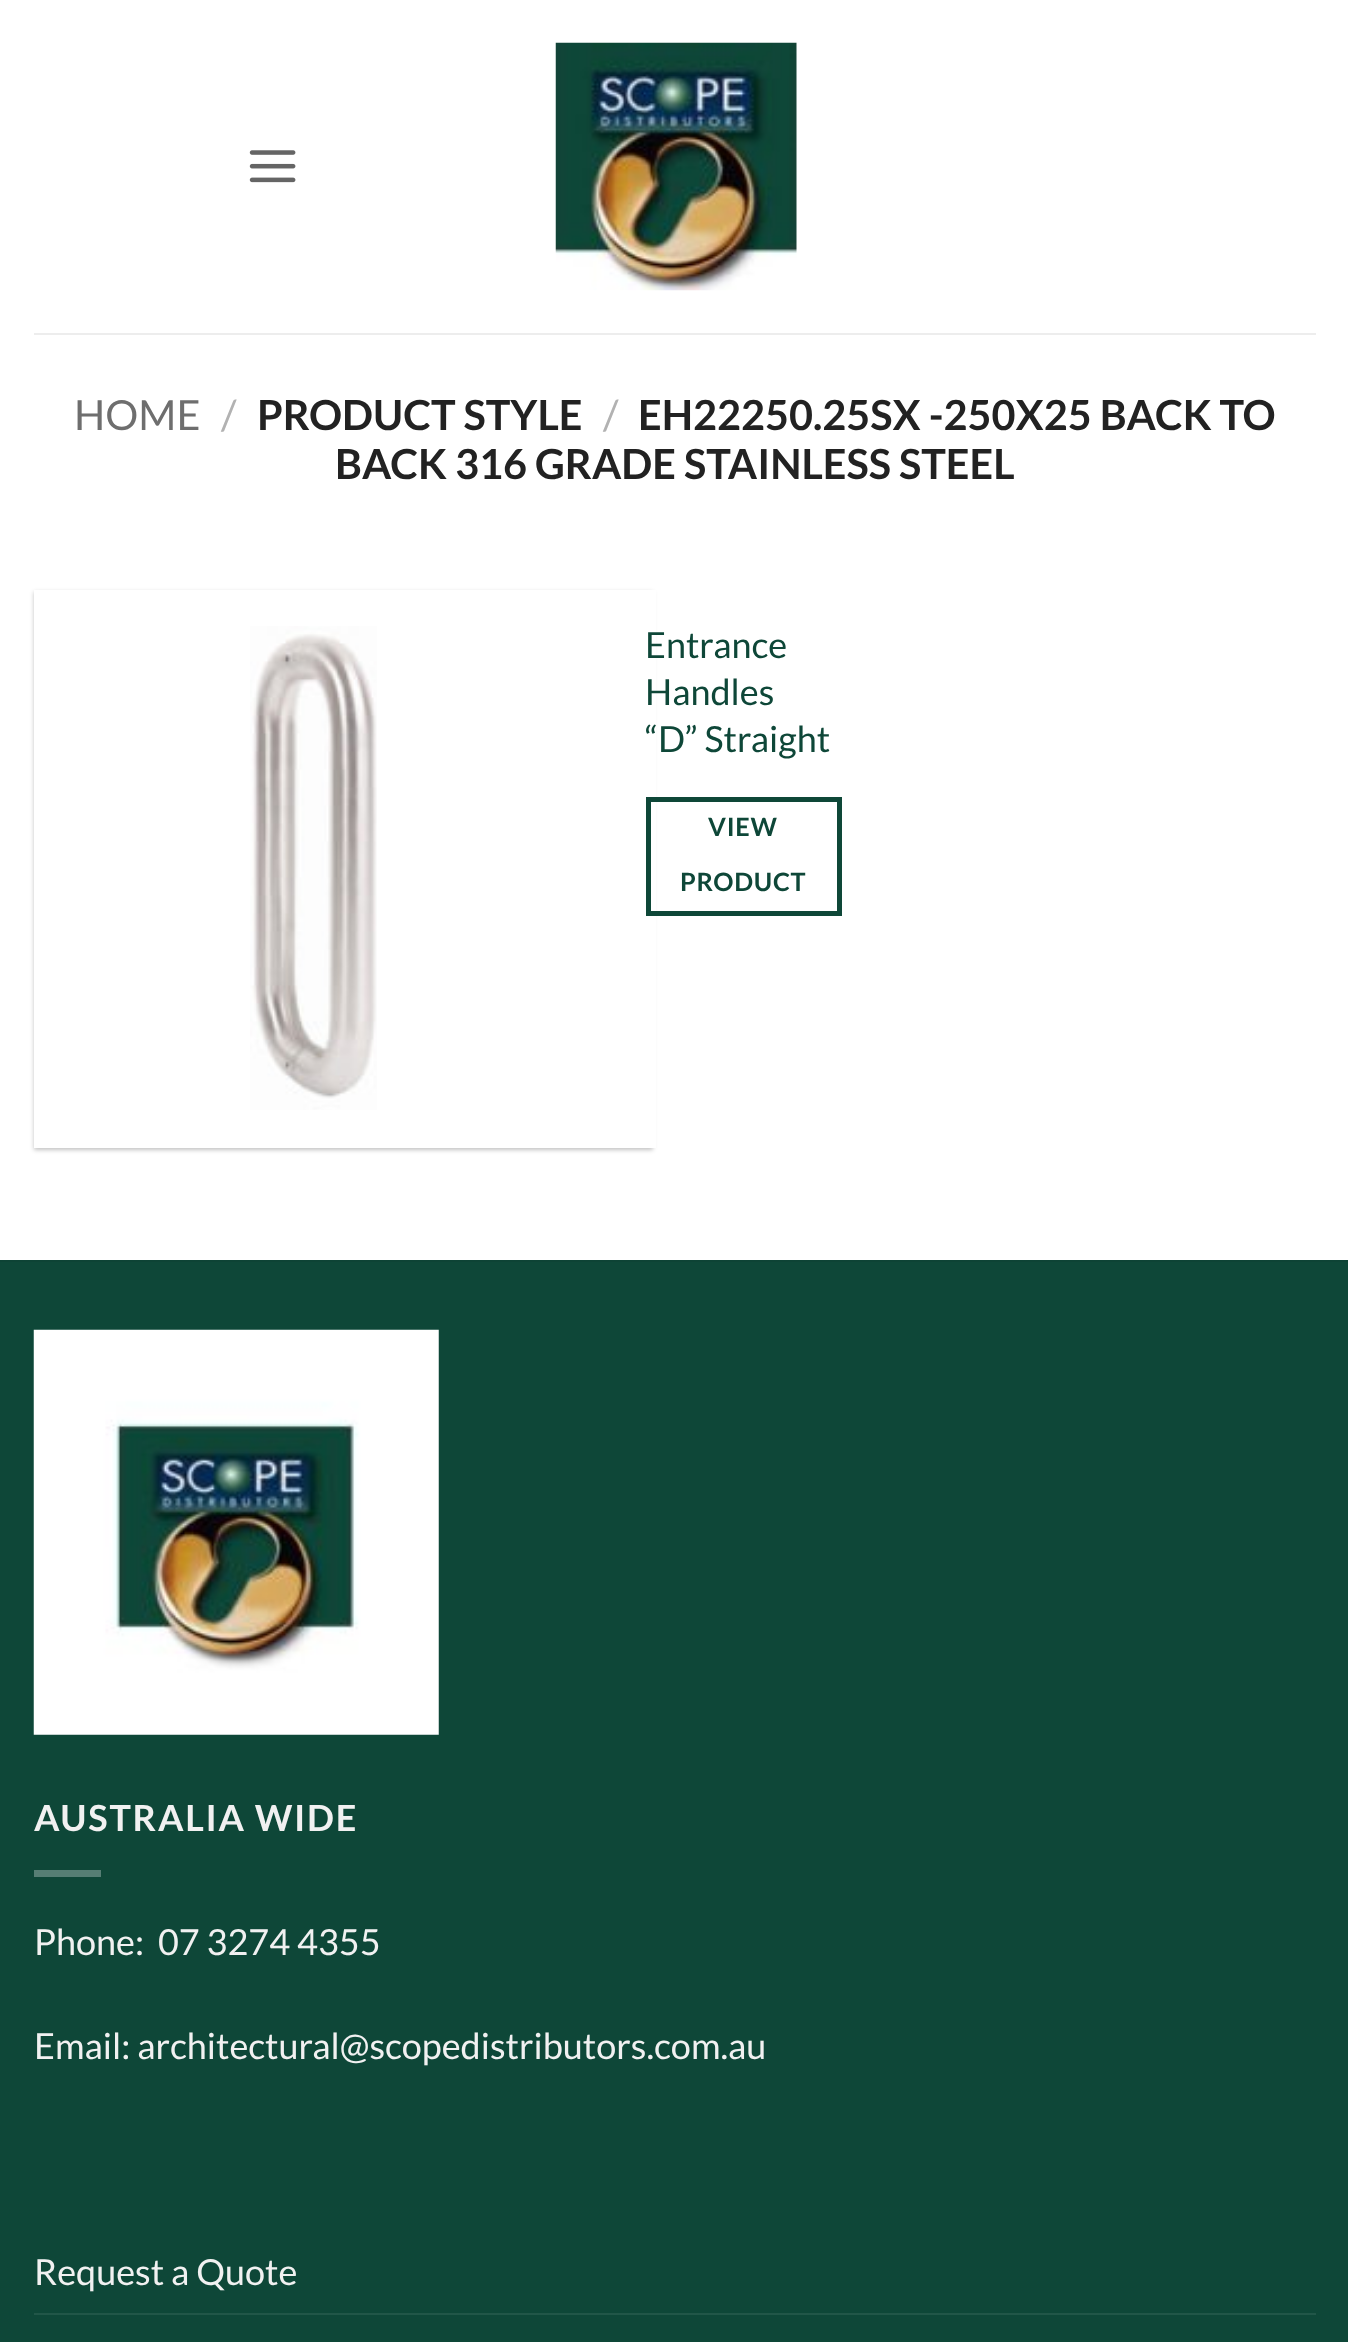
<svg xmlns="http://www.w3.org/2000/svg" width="1348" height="2342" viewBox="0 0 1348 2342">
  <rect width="100%" height="100%" fill="rgb(255,255,255)"/>
  <image x="249" y="150" width="47" height="33" href="pic1.png"/>
  <image x="555" y="42" width="242" height="249" href="pic2.png"/>
  <rect x="34" y="333" width="1282" height="2" fill="rgb(237,237,237)"/>
  <text x="74" y="430" font-family="Lato" font-size="41.4" fill="rgb(110,110,110)">HOME</text>
  <text x="221" y="430" font-family="Lato" font-size="41.4" fill="rgb(178,178,178)">/</text>
  <text x="257" y="430" font-family="Lato" font-size="41.4" font-weight="bold" fill="rgb(34,34,34)">PRODUCT STYLE</text>
  <text x="603" y="430" font-family="Lato" font-size="41.4" fill="rgb(178,178,178)">/</text>
  <g font-family="Lato" font-size="41.4" font-weight="bold" fill="rgb(34,34,34)">
    <text x="638" y="430">EH22250.25SX -250X25 BACK TO</text>
    <text x="335" y="479">BACK 316 GRADE STAINLESS STEEL</text>
  </g>
  <rect x="34" y="592" width="619" height="558" fill="rgba(0,0,0,0.24)" filter="blur(2px)"/>
  <rect x="34" y="590" width="622" height="558" fill="rgb(255,255,255)"/>
  <image x="250" y="626" width="127" height="484" href="pic3.png"/>
  <g font-family="Lato" font-size="36" fill="rgb(14,71,56)">
    <text>
      <tspan x="645" y="658">Entrance</tspan>
      <tspan x="645" y="705">Handles</tspan>
      <tspan x="645" y="752">“D” Straight</tspan>
    </text>
  </g>
  <rect x="648.5" y="799.5" width="191" height="114" fill="none" stroke="rgb(14,71,56)" stroke-width="5"/>
  <g font-family="Lato" font-size="25.25" font-weight="bold" letter-spacing="0.75" fill="rgb(14,71,56)">
    <text x="708" y="836">VIEW</text>
    <text x="680" y="891">PRODUCT</text>
  </g>
  <rect x="0" y="1262" width="1348" height="1080" fill="rgb(14,71,56)"/>
  <rect x="0" y="1260" width="1348" height="2" fill="rgb(13,67,53)"/>
  <image x="33" y="1329" width="406" height="406" href="pic4.png"/>
  <text x="34" y="1831" font-family="Lato" font-size="36" font-weight="bold" letter-spacing="1.75" fill="rgb(241,241,241)">AUSTRALIA WIDE</text>
  <rect x="34" y="1870" width="67" height="7" fill="rgb(86,126,116)"/>
  <g font-family="Lato" font-size="36" fill="rgb(241,241,241)">
    <text x="34" y="1955" xml:space="preserve">Phone:  07 3274 4355</text>
    <text x="34" y="2059">Email: architectural@scopedistributors.com.au</text>
    <text x="34" y="2285">Request a Quote</text>
  </g>
  <rect x="34" y="2313" width="1282" height="2" fill="rgb(33,86,72)"/>
</svg>
